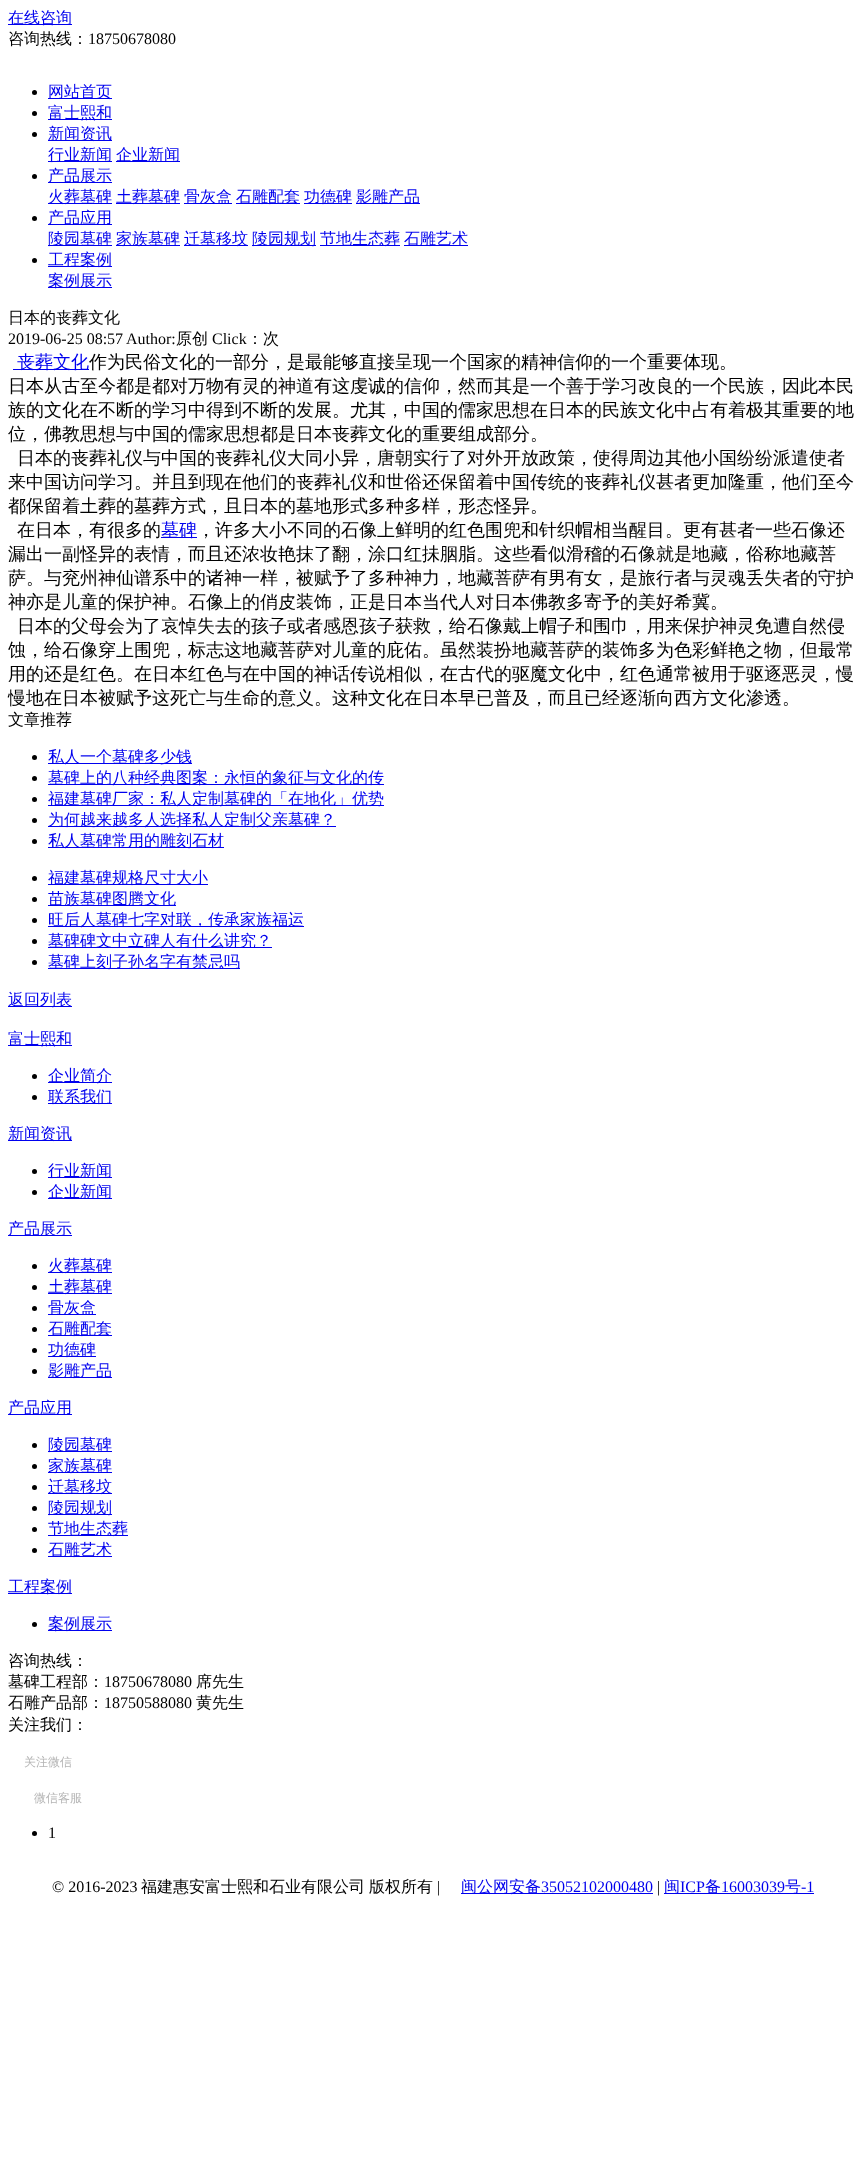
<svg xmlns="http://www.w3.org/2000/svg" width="866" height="2160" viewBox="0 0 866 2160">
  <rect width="100%" height="100%" fill="rgb(255,255,255)"/>
  <rect x="8" y="24" width="64" height="1" fill="rgb(0,0,238)"/>
  <text x="8" y="23" font-family="WenQuanYi Zen Hei" font-size="16" font-weight="500" fill="rgb(0,0,238)">在线咨询</text>
  <text x="8" y="44" font-family="WenQuanYi Zen Hei" font-size="16" font-weight="500" fill="rgb(0,0,0)">咨询热线：</text>
  <text x="88" y="44" font-family="Liberation Serif" font-size="16" fill="rgb(0,0,0)">18750678080</text>
  <circle cx="34.5" cy="92.5" r="2.5" fill="rgb(0,0,0)"/>
  <rect x="48" y="98" width="64" height="1" fill="rgb(0,0,238)"/>
  <text x="48" y="97" font-family="WenQuanYi Zen Hei" font-size="16" font-weight="500" fill="rgb(0,0,238)">网站首页</text>
  <circle cx="34.5" cy="113.5" r="2.5" fill="rgb(0,0,0)"/>
  <rect x="48" y="119" width="64" height="1" fill="rgb(0,0,238)"/>
  <text x="48" y="118" font-family="WenQuanYi Zen Hei" font-size="16" font-weight="500" fill="rgb(0,0,238)">富士熙和</text>
  <circle cx="34.5" cy="134.5" r="2.5" fill="rgb(0,0,0)"/>
  <rect x="48" y="140" width="64" height="1" fill="rgb(0,0,238)"/>
  <text x="48" y="139" font-family="WenQuanYi Zen Hei" font-size="16" font-weight="500" fill="rgb(0,0,238)">新闻资讯</text>
  <rect x="48" y="161" width="64" height="1" fill="rgb(0,0,238)"/>
  <text x="48" y="160" font-family="WenQuanYi Zen Hei" font-size="16" font-weight="500" fill="rgb(0,0,238)">行业新闻</text>
  <rect x="116" y="161" width="64" height="1" fill="rgb(0,0,238)"/>
  <text x="116" y="160" font-family="WenQuanYi Zen Hei" font-size="16" font-weight="500" fill="rgb(0,0,238)">企业新闻</text>
  <circle cx="34.5" cy="176.5" r="2.5" fill="rgb(0,0,0)"/>
  <rect x="48" y="182" width="64" height="1" fill="rgb(0,0,238)"/>
  <text x="48" y="181" font-family="WenQuanYi Zen Hei" font-size="16" font-weight="500" fill="rgb(0,0,238)">产品展示</text>
  <rect x="48" y="203" width="64" height="1" fill="rgb(0,0,238)"/>
  <text x="48" y="202" font-family="WenQuanYi Zen Hei" font-size="16" font-weight="500" fill="rgb(0,0,238)">火葬墓碑</text>
  <rect x="116" y="203" width="64" height="1" fill="rgb(0,0,238)"/>
  <text x="116" y="202" font-family="WenQuanYi Zen Hei" font-size="16" font-weight="500" fill="rgb(0,0,238)">土葬墓碑</text>
  <rect x="184" y="203" width="48" height="1" fill="rgb(0,0,238)"/>
  <text x="184" y="202" font-family="WenQuanYi Zen Hei" font-size="16" font-weight="500" fill="rgb(0,0,238)">骨灰盒</text>
  <rect x="236" y="203" width="64" height="1" fill="rgb(0,0,238)"/>
  <text x="236" y="202" font-family="WenQuanYi Zen Hei" font-size="16" font-weight="500" fill="rgb(0,0,238)">石雕配套</text>
  <rect x="304" y="203" width="48" height="1" fill="rgb(0,0,238)"/>
  <text x="304" y="202" font-family="WenQuanYi Zen Hei" font-size="16" font-weight="500" fill="rgb(0,0,238)">功德碑</text>
  <rect x="356" y="203" width="64" height="1" fill="rgb(0,0,238)"/>
  <text x="356" y="202" font-family="WenQuanYi Zen Hei" font-size="16" font-weight="500" fill="rgb(0,0,238)">影雕产品</text>
  <circle cx="34.5" cy="218.5" r="2.5" fill="rgb(0,0,0)"/>
  <rect x="48" y="224" width="64" height="1" fill="rgb(0,0,238)"/>
  <text x="48" y="223" font-family="WenQuanYi Zen Hei" font-size="16" font-weight="500" fill="rgb(0,0,238)">产品应用</text>
  <rect x="48" y="245" width="64" height="1" fill="rgb(0,0,238)"/>
  <text x="48" y="244" font-family="WenQuanYi Zen Hei" font-size="16" font-weight="500" fill="rgb(0,0,238)">陵园墓碑</text>
  <rect x="116" y="245" width="64" height="1" fill="rgb(0,0,238)"/>
  <text x="116" y="244" font-family="WenQuanYi Zen Hei" font-size="16" font-weight="500" fill="rgb(0,0,238)">家族墓碑</text>
  <rect x="184" y="245" width="64" height="1" fill="rgb(0,0,238)"/>
  <text x="184" y="244" font-family="WenQuanYi Zen Hei" font-size="16" font-weight="500" fill="rgb(0,0,238)">迁墓移坟</text>
  <rect x="252" y="245" width="64" height="1" fill="rgb(0,0,238)"/>
  <text x="252" y="244" font-family="WenQuanYi Zen Hei" font-size="16" font-weight="500" fill="rgb(0,0,238)">陵园规划</text>
  <rect x="320" y="245" width="80" height="1" fill="rgb(0,0,238)"/>
  <text x="320" y="244" font-family="WenQuanYi Zen Hei" font-size="16" font-weight="500" fill="rgb(0,0,238)">节地生态葬</text>
  <rect x="404" y="245" width="64" height="1" fill="rgb(0,0,238)"/>
  <text x="404" y="244" font-family="WenQuanYi Zen Hei" font-size="16" font-weight="500" fill="rgb(0,0,238)">石雕艺术</text>
  <circle cx="34.5" cy="260.5" r="2.5" fill="rgb(0,0,0)"/>
  <rect x="48" y="266" width="64" height="1" fill="rgb(0,0,238)"/>
  <text x="48" y="265" font-family="WenQuanYi Zen Hei" font-size="16" font-weight="500" fill="rgb(0,0,238)">工程案例</text>
  <rect x="48" y="287" width="64" height="1" fill="rgb(0,0,238)"/>
  <text x="48" y="286" font-family="WenQuanYi Zen Hei" font-size="16" font-weight="500" fill="rgb(0,0,238)">案例展示</text>
  <text x="8" y="323" font-family="WenQuanYi Zen Hei" font-size="16" font-weight="500" fill="rgb(0,0,0)">日本的丧葬文化</text>
  <g font-family="Liberation Serif" font-size="16" fill="rgb(0,0,0)">
    <text x="8" y="344">2019-06-25 08:57</text>
    <text x="126" y="344">Author:</text>
  </g>
  <text x="176" y="344" font-family="WenQuanYi Zen Hei" font-size="16" font-weight="500" fill="rgb(0,0,0)">原创</text>
  <text x="212" y="344" font-family="Liberation Serif" font-size="16" fill="rgb(0,0,0)">Click</text>
  <text x="247" y="344" font-family="WenQuanYi Zen Hei" font-size="16" font-weight="500" fill="rgb(0,0,0)">：次</text>
  <rect x="13" y="369" width="76" height="1" fill="rgb(0,0,238)"/>
  <text x="17" y="368" font-family="WenQuanYi Zen Hei" font-size="18" font-weight="500" fill="rgb(0,0,238)">丧葬文化</text>
  <g font-family="WenQuanYi Zen Hei" font-size="18" font-weight="500" fill="rgb(0,0,0)">
    <text x="89" y="368">作为民俗文化的一部分，是最能够直接呈现一个国家的精神信仰的一个重要体现。</text>
    <text>
      <tspan x="8" y="392">日本从古至今都是都对万物有灵的神道有这虔诚的信仰，然而其是一个善于学习改良的一个民族，因此本民</tspan>
      <tspan x="8" y="416">族的文化在不断的学习中得到不断的发展。尤其，中国的儒家思想在日本的民族文化中占有着极其重要的地</tspan>
      <tspan x="8" y="440">位，佛教思想与中国的儒家思想都是日本丧葬文化的重要组成部分。</tspan>
    </text>
    <text x="17" y="464">日本的丧葬礼仪与中国的丧葬礼仪大同小异，唐朝实行了对外开放政策，使得周边其他小国纷纷派遣使者</text>
    <text>
      <tspan x="8" y="488">来中国访问学习。并且到现在他们的丧葬礼仪和世俗还保留着中国传统的丧葬礼仪甚者更加隆重，他们至今</tspan>
      <tspan x="8" y="512">都保留着土葬的墓葬方式，且日本的墓地形式多种多样，形态怪异。</tspan>
    </text>
    <text x="17" y="536">在日本，有很多的</text>
  </g>
  <rect x="161" y="537" width="36" height="1" fill="rgb(0,0,238)"/>
  <text x="161" y="536" font-family="WenQuanYi Zen Hei" font-size="18" font-weight="500" fill="rgb(0,0,238)">墓碑</text>
  <g font-family="WenQuanYi Zen Hei" font-size="18" font-weight="500" fill="rgb(0,0,0)">
    <text x="197" y="536">，许多大小不同的石像上鲜明的红色围兜和针织帽相当醒目。更有甚者一些石像还</text>
    <text>
      <tspan x="8" y="560">漏出一副怪异的表情，而且还浓妆艳抹了翻，涂口红抺胭脂。这些看似滑稽的石像就是地藏，俗称地藏菩</tspan>
      <tspan x="8" y="584">萨。与兖州神仙谱系中的诸神一样，被赋予了多种神力，地藏菩萨有男有女，是旅行者与灵魂丢失者的守护</tspan>
      <tspan x="8" y="608">神亦是儿童的保护神。石像上的俏皮装饰，正是日本当代人对日本佛教多寄予的美好希冀。</tspan>
    </text>
    <text x="17" y="632">日本的父母会为了哀悼失去的孩子或者感恩孩子获救，给石像戴上帽子和围巾，用来保护神灵免遭自然侵</text>
    <text>
      <tspan x="8" y="656">蚀，给石像穿上围兜，标志这地藏菩萨对儿童的庇佑。虽然装扮地藏菩萨的装饰多为色彩鲜艳之物，但最常</tspan>
      <tspan x="8" y="680">用的还是红色。在日本红色与在中国的神话传说相似，在古代的驱魔文化中，红色通常被用于驱逐恶灵，慢</tspan>
      <tspan x="8" y="704">慢地在日本被赋予这死亡与生命的意义。这种文化在日本早已普及，而且已经逐渐向西方文化渗透。</tspan>
    </text>
  </g>
  <text x="8" y="725" font-family="WenQuanYi Zen Hei" font-size="16" font-weight="500" fill="rgb(0,0,0)">文章推荐</text>
  <circle cx="34.5" cy="757.5" r="2.5" fill="rgb(0,0,0)"/>
  <rect x="48" y="763" width="144" height="1" fill="rgb(0,0,238)"/>
  <text x="48" y="762" font-family="WenQuanYi Zen Hei" font-size="16" font-weight="500" fill="rgb(0,0,238)">私人一个墓碑多少钱</text>
  <circle cx="34.5" cy="778.5" r="2.5" fill="rgb(0,0,0)"/>
  <rect x="48" y="784" width="336" height="1" fill="rgb(0,0,238)"/>
  <text x="48" y="783" font-family="WenQuanYi Zen Hei" font-size="16" font-weight="500" fill="rgb(0,0,238)">墓碑上的八种经典图案：永恒的象征与文化的传</text>
  <circle cx="34.5" cy="799.5" r="2.5" fill="rgb(0,0,0)"/>
  <rect x="48" y="805" width="336" height="1" fill="rgb(0,0,238)"/>
  <text x="48" y="804" font-family="WenQuanYi Zen Hei" font-size="16" font-weight="500" fill="rgb(0,0,238)">福建墓碑厂家：私人定制墓碑的「在地化」优势</text>
  <circle cx="34.5" cy="820.5" r="2.5" fill="rgb(0,0,0)"/>
  <rect x="48" y="826" width="288" height="1" fill="rgb(0,0,238)"/>
  <text x="48" y="825" font-family="WenQuanYi Zen Hei" font-size="16" font-weight="500" fill="rgb(0,0,238)">为何越来越多人选择私人定制父亲墓碑？</text>
  <circle cx="34.5" cy="841.5" r="2.5" fill="rgb(0,0,0)"/>
  <rect x="48" y="847" width="176" height="1" fill="rgb(0,0,238)"/>
  <text x="48" y="846" font-family="WenQuanYi Zen Hei" font-size="16" font-weight="500" fill="rgb(0,0,238)">私人墓碑常用的雕刻石材</text>
  <circle cx="34.5" cy="878.5" r="2.5" fill="rgb(0,0,0)"/>
  <rect x="48" y="884" width="160" height="1" fill="rgb(0,0,238)"/>
  <text x="48" y="883" font-family="WenQuanYi Zen Hei" font-size="16" font-weight="500" fill="rgb(0,0,238)">福建墓碑规格尺寸大小</text>
  <circle cx="34.5" cy="899.5" r="2.5" fill="rgb(0,0,0)"/>
  <rect x="48" y="905" width="128" height="1" fill="rgb(0,0,238)"/>
  <text x="48" y="904" font-family="WenQuanYi Zen Hei" font-size="16" font-weight="500" fill="rgb(0,0,238)">苗族墓碑图腾文化</text>
  <circle cx="34.5" cy="920.5" r="2.5" fill="rgb(0,0,0)"/>
  <rect x="48" y="926" width="256" height="1" fill="rgb(0,0,238)"/>
  <text x="48" y="925" font-family="WenQuanYi Zen Hei" font-size="16" font-weight="500" fill="rgb(0,0,238)">旺后人墓碑七字对联，传承家族福运</text>
  <circle cx="34.5" cy="941.5" r="2.5" fill="rgb(0,0,0)"/>
  <rect x="48" y="947" width="224" height="1" fill="rgb(0,0,238)"/>
  <text x="48" y="946" font-family="WenQuanYi Zen Hei" font-size="16" font-weight="500" fill="rgb(0,0,238)">墓碑碑文中立碑人有什么讲究？</text>
  <circle cx="34.5" cy="962.5" r="2.5" fill="rgb(0,0,0)"/>
  <rect x="48" y="968" width="192" height="1" fill="rgb(0,0,238)"/>
  <text x="48" y="967" font-family="WenQuanYi Zen Hei" font-size="16" font-weight="500" fill="rgb(0,0,238)">墓碑上刻子孙名字有禁忌吗</text>
  <rect x="8" y="1006" width="64" height="1" fill="rgb(0,0,238)"/>
  <text x="8" y="1005" font-family="WenQuanYi Zen Hei" font-size="16" font-weight="500" fill="rgb(0,0,238)">返回列表</text>
  <rect x="8" y="1045" width="64" height="1" fill="rgb(0,0,238)"/>
  <text x="8" y="1044" font-family="WenQuanYi Zen Hei" font-size="16" font-weight="500" fill="rgb(0,0,238)">富士熙和</text>
  <circle cx="34.5" cy="1076.5" r="2.5" fill="rgb(0,0,0)"/>
  <rect x="48" y="1082" width="64" height="1" fill="rgb(0,0,238)"/>
  <text x="48" y="1081" font-family="WenQuanYi Zen Hei" font-size="16" font-weight="500" fill="rgb(0,0,238)">企业简介</text>
  <circle cx="34.5" cy="1097.5" r="2.5" fill="rgb(0,0,0)"/>
  <rect x="48" y="1103" width="64" height="1" fill="rgb(0,0,238)"/>
  <text x="48" y="1102" font-family="WenQuanYi Zen Hei" font-size="16" font-weight="500" fill="rgb(0,0,238)">联系我们</text>
  <rect x="8" y="1140" width="64" height="1" fill="rgb(0,0,238)"/>
  <text x="8" y="1139" font-family="WenQuanYi Zen Hei" font-size="16" font-weight="500" fill="rgb(0,0,238)">新闻资讯</text>
  <circle cx="34.5" cy="1171.5" r="2.5" fill="rgb(0,0,0)"/>
  <rect x="48" y="1177" width="64" height="1" fill="rgb(0,0,238)"/>
  <text x="48" y="1176" font-family="WenQuanYi Zen Hei" font-size="16" font-weight="500" fill="rgb(0,0,238)">行业新闻</text>
  <circle cx="34.5" cy="1192.5" r="2.5" fill="rgb(0,0,0)"/>
  <rect x="48" y="1198" width="64" height="1" fill="rgb(0,0,238)"/>
  <text x="48" y="1197" font-family="WenQuanYi Zen Hei" font-size="16" font-weight="500" fill="rgb(0,0,238)">企业新闻</text>
  <rect x="8" y="1235" width="64" height="1" fill="rgb(0,0,238)"/>
  <text x="8" y="1234" font-family="WenQuanYi Zen Hei" font-size="16" font-weight="500" fill="rgb(0,0,238)">产品展示</text>
  <circle cx="34.5" cy="1266.5" r="2.5" fill="rgb(0,0,0)"/>
  <rect x="48" y="1272" width="64" height="1" fill="rgb(0,0,238)"/>
  <text x="48" y="1271" font-family="WenQuanYi Zen Hei" font-size="16" font-weight="500" fill="rgb(0,0,238)">火葬墓碑</text>
  <circle cx="34.5" cy="1287.5" r="2.5" fill="rgb(0,0,0)"/>
  <rect x="48" y="1293" width="64" height="1" fill="rgb(0,0,238)"/>
  <text x="48" y="1292" font-family="WenQuanYi Zen Hei" font-size="16" font-weight="500" fill="rgb(0,0,238)">土葬墓碑</text>
  <circle cx="34.5" cy="1308.5" r="2.5" fill="rgb(0,0,0)"/>
  <rect x="48" y="1314" width="48" height="1" fill="rgb(0,0,238)"/>
  <text x="48" y="1313" font-family="WenQuanYi Zen Hei" font-size="16" font-weight="500" fill="rgb(0,0,238)">骨灰盒</text>
  <circle cx="34.5" cy="1329.5" r="2.5" fill="rgb(0,0,0)"/>
  <rect x="48" y="1335" width="64" height="1" fill="rgb(0,0,238)"/>
  <text x="48" y="1334" font-family="WenQuanYi Zen Hei" font-size="16" font-weight="500" fill="rgb(0,0,238)">石雕配套</text>
  <circle cx="34.5" cy="1350.5" r="2.5" fill="rgb(0,0,0)"/>
  <rect x="48" y="1356" width="48" height="1" fill="rgb(0,0,238)"/>
  <text x="48" y="1355" font-family="WenQuanYi Zen Hei" font-size="16" font-weight="500" fill="rgb(0,0,238)">功德碑</text>
  <circle cx="34.5" cy="1371.5" r="2.5" fill="rgb(0,0,0)"/>
  <rect x="48" y="1377" width="64" height="1" fill="rgb(0,0,238)"/>
  <text x="48" y="1376" font-family="WenQuanYi Zen Hei" font-size="16" font-weight="500" fill="rgb(0,0,238)">影雕产品</text>
  <rect x="8" y="1414" width="64" height="1" fill="rgb(0,0,238)"/>
  <text x="8" y="1413" font-family="WenQuanYi Zen Hei" font-size="16" font-weight="500" fill="rgb(0,0,238)">产品应用</text>
  <circle cx="34.5" cy="1445.5" r="2.5" fill="rgb(0,0,0)"/>
  <rect x="48" y="1451" width="64" height="1" fill="rgb(0,0,238)"/>
  <text x="48" y="1450" font-family="WenQuanYi Zen Hei" font-size="16" font-weight="500" fill="rgb(0,0,238)">陵园墓碑</text>
  <circle cx="34.5" cy="1466.5" r="2.5" fill="rgb(0,0,0)"/>
  <rect x="48" y="1472" width="64" height="1" fill="rgb(0,0,238)"/>
  <text x="48" y="1471" font-family="WenQuanYi Zen Hei" font-size="16" font-weight="500" fill="rgb(0,0,238)">家族墓碑</text>
  <circle cx="34.5" cy="1487.5" r="2.5" fill="rgb(0,0,0)"/>
  <rect x="48" y="1493" width="64" height="1" fill="rgb(0,0,238)"/>
  <text x="48" y="1492" font-family="WenQuanYi Zen Hei" font-size="16" font-weight="500" fill="rgb(0,0,238)">迁墓移坟</text>
  <circle cx="34.5" cy="1508.5" r="2.5" fill="rgb(0,0,0)"/>
  <rect x="48" y="1514" width="64" height="1" fill="rgb(0,0,238)"/>
  <text x="48" y="1513" font-family="WenQuanYi Zen Hei" font-size="16" font-weight="500" fill="rgb(0,0,238)">陵园规划</text>
  <circle cx="34.5" cy="1529.5" r="2.5" fill="rgb(0,0,0)"/>
  <rect x="48" y="1535" width="80" height="1" fill="rgb(0,0,238)"/>
  <text x="48" y="1534" font-family="WenQuanYi Zen Hei" font-size="16" font-weight="500" fill="rgb(0,0,238)">节地生态葬</text>
  <circle cx="34.5" cy="1550.5" r="2.5" fill="rgb(0,0,0)"/>
  <rect x="48" y="1556" width="64" height="1" fill="rgb(0,0,238)"/>
  <text x="48" y="1555" font-family="WenQuanYi Zen Hei" font-size="16" font-weight="500" fill="rgb(0,0,238)">石雕艺术</text>
  <rect x="8" y="1593" width="64" height="1" fill="rgb(0,0,238)"/>
  <text x="8" y="1592" font-family="WenQuanYi Zen Hei" font-size="16" font-weight="500" fill="rgb(0,0,238)">工程案例</text>
  <circle cx="34.5" cy="1624.5" r="2.5" fill="rgb(0,0,0)"/>
  <rect x="48" y="1630" width="64" height="1" fill="rgb(0,0,238)"/>
  <text x="48" y="1629" font-family="WenQuanYi Zen Hei" font-size="16" font-weight="500" fill="rgb(0,0,238)">案例展示</text>
  <g font-family="WenQuanYi Zen Hei" font-size="16" font-weight="500" fill="rgb(0,0,0)">
    <text>
      <tspan x="8" y="1666">咨询热线：</tspan>
      <tspan x="8" y="1687">墓碑工程部：</tspan>
    </text>
  </g>
  <text x="104" y="1687" font-family="Liberation Serif" font-size="16" fill="rgb(0,0,0)">18750678080</text>
  <g font-family="WenQuanYi Zen Hei" font-size="16" font-weight="500" fill="rgb(0,0,0)">
    <text x="196" y="1687">席先生</text>
    <text x="8" y="1708">石雕产品部：</text>
  </g>
  <text x="104" y="1708" font-family="Liberation Serif" font-size="16" fill="rgb(0,0,0)">18750588080</text>
  <g font-family="WenQuanYi Zen Hei" font-size="16" font-weight="500" fill="rgb(0,0,0)">
    <text x="196" y="1708">黄先生</text>
    <text x="8" y="1730">关注我们：</text>
  </g>
  <g font-family="WenQuanYi Zen Hei" font-size="12" font-weight="500" fill="rgb(181,181,181)">
    <text x="24" y="1766">关注微信</text>
    <text x="34" y="1802">微信客服</text>
  </g>
  <circle cx="34.5" cy="1833.5" r="2.5" fill="rgb(0,0,0)"/>
  <g font-family="Liberation Serif" font-size="16" fill="rgb(0,0,0)">
    <text x="48" y="1838">1</text>
    <text x="52" y="1892">© 2016-2023</text>
  </g>
  <g font-family="WenQuanYi Zen Hei" font-size="16" font-weight="500" fill="rgb(0,0,0)">
    <text x="141" y="1892">福建惠安富士熙和石业有限公司</text>
    <text x="369" y="1892">版权所有</text>
  </g>
  <text x="437" y="1892" font-family="Liberation Serif" font-size="16" fill="rgb(0,0,0)">|</text>
  <rect x="461" y="1893" width="192" height="1" fill="rgb(0,0,238)"/>
  <text x="461" y="1892" font-family="WenQuanYi Zen Hei" font-size="16" font-weight="500" fill="rgb(0,0,238)">闽公网安备</text>
  <text x="541" y="1892" font-family="Liberation Serif" font-size="16" fill="rgb(0,0,238)">35052102000480</text>
  <text x="657" y="1892" font-family="Liberation Serif" font-size="16" fill="rgb(0,0,0)">|</text>
  <rect x="664" y="1893" width="150" height="1" fill="rgb(0,0,238)"/>
  <text x="664" y="1892" font-family="WenQuanYi Zen Hei" font-size="16" font-weight="500" fill="rgb(0,0,238)">闽</text>
  <text x="680" y="1892" font-family="Liberation Serif" font-size="16" fill="rgb(0,0,238)">ICP</text>
  <text x="705" y="1892" font-family="WenQuanYi Zen Hei" font-size="16" font-weight="500" fill="rgb(0,0,238)">备</text>
  <text x="721" y="1892" font-family="Liberation Serif" font-size="16" fill="rgb(0,0,238)">16003039</text>
  <text x="785" y="1892" font-family="WenQuanYi Zen Hei" font-size="16" font-weight="500" fill="rgb(0,0,238)">号</text>
  <text x="801" y="1892" font-family="Liberation Serif" font-size="16" fill="rgb(0,0,238)">-1</text>
</svg>
